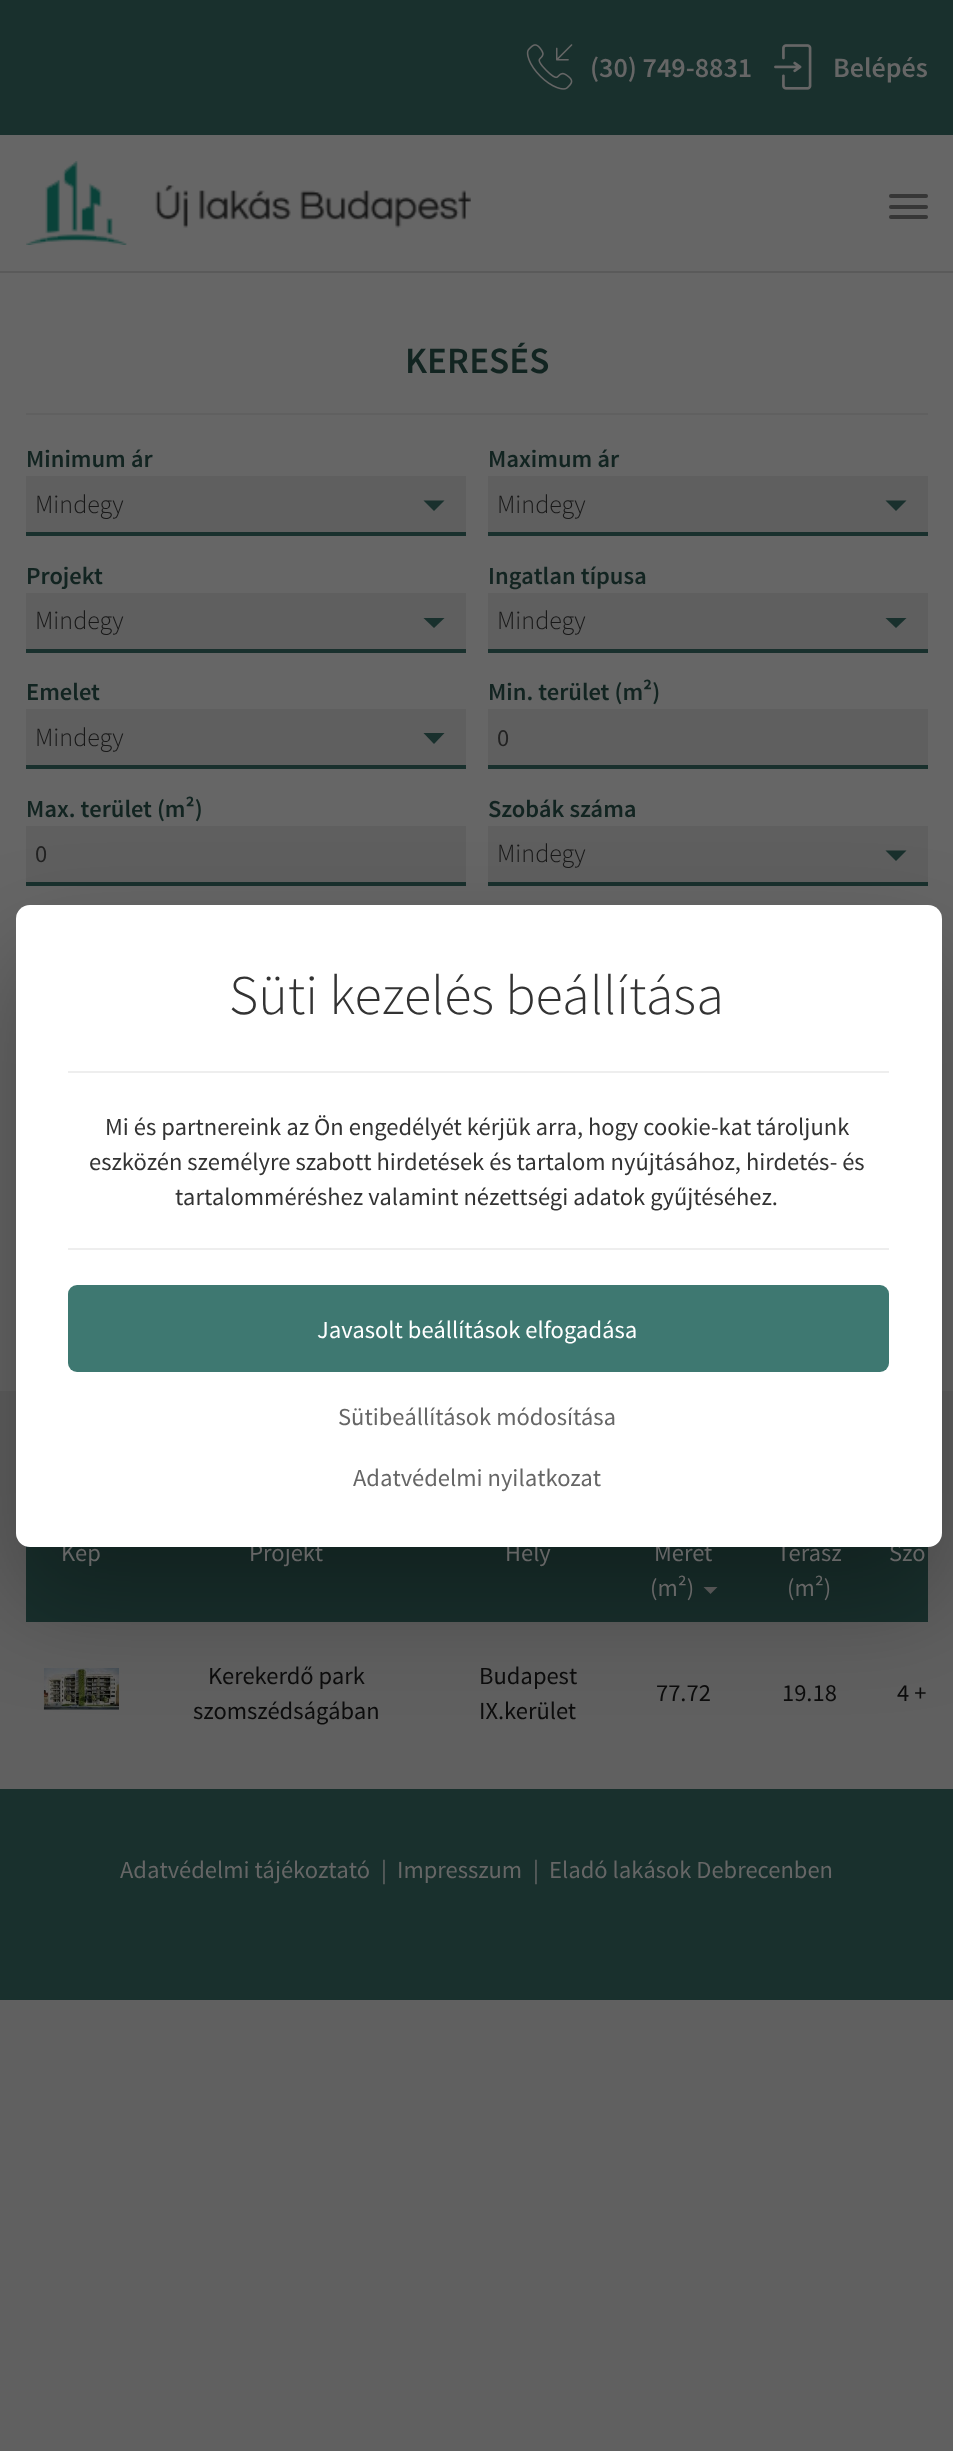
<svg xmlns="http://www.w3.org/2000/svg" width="953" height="2451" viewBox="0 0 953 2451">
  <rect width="100%" height="100%" fill="rgb(96,96,96)"/>
  <rect x="0" y="0" width="953" height="135" fill="rgb(25,48,45)"/>
  <image x="526" y="44" width="47" height="46" href="pic1.png"/>
  <text x="590" y="77" font-family="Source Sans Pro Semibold" font-size="28" font-weight="600" fill="rgb(102,102,102)">(30) 749-8831</text>
  <image x="774" y="44" width="38" height="46" href="pic2.png"/>
  <text x="833" y="77" font-family="Source Sans Pro Semibold" font-size="28" font-weight="600" fill="rgb(102,102,102)">Belépés</text>
  <rect x="0" y="135" width="953" height="136" fill="rgb(102,102,102)"/>
  <rect x="0" y="271" width="953" height="2" fill="rgb(90,90,90)"/>
  <image x="26" y="161" width="445" height="84" href="pic3.png"/>
  <rect x="889" y="194" width="39" height="4" rx="2" fill="rgb(54,54,54)"/>
  <rect x="889" y="205" width="39" height="4" rx="2" fill="rgb(54,54,54)"/>
  <rect x="889" y="215" width="39" height="4" rx="2" fill="rgb(54,54,54)"/>
  <rect x="0" y="273" width="953" height="1118" fill="rgb(102,102,102)"/>
  <rect x="26" y="413" width="902" height="2" fill="rgb(96,96,96)"/>
  <text x="405" y="373" font-family="Source Sans Pro Semibold" font-size="37" font-weight="600" fill="rgb(18,36,33)">KERESÉS</text>
  <text x="26" y="467" font-family="Source Sans Pro Semibold" font-size="24.5" font-weight="600" fill="rgb(18,36,33)">Minimum ár</text>
  <rect x="26" y="476" width="440" height="56" fill="rgb(95,95,95)"/>
  <rect x="26" y="532" width="440" height="4" fill="rgb(25,48,45)"/>
  <text x="35" y="513" font-family="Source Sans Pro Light" font-size="26" font-weight="300" fill="rgb(24,24,24)">Mindegy</text>
  <path d="M423.5 500.5H444.5L434 511Z" fill="rgb(25,48,45)"/>
  <text x="488" y="467" font-family="Source Sans Pro Semibold" font-size="24.5" font-weight="600" fill="rgb(18,36,33)">Maximum ár</text>
  <rect x="488" y="476" width="440" height="56" fill="rgb(95,95,95)"/>
  <rect x="488" y="532" width="440" height="4" fill="rgb(25,48,45)"/>
  <text x="497" y="513" font-family="Source Sans Pro Light" font-size="26" font-weight="300" fill="rgb(24,24,24)">Mindegy</text>
  <path d="M885.5 500.5H906.5L896 511Z" fill="rgb(25,48,45)"/>
  <text x="26" y="584" font-family="Source Sans Pro Semibold" font-size="24.5" font-weight="600" fill="rgb(18,36,33)">Projekt</text>
  <rect x="26" y="593" width="440" height="56" fill="rgb(95,95,95)"/>
  <rect x="26" y="649" width="440" height="4" fill="rgb(25,48,45)"/>
  <text x="35" y="629" font-family="Source Sans Pro Light" font-size="26" font-weight="300" fill="rgb(24,24,24)">Mindegy</text>
  <path d="M423.5 618H444.5L434 628Z" fill="rgb(25,48,45)"/>
  <text x="488" y="584" font-family="Source Sans Pro Semibold" font-size="24.5" font-weight="600" fill="rgb(18,36,33)">Ingatlan típusa</text>
  <rect x="488" y="593" width="440" height="56" fill="rgb(95,95,95)"/>
  <rect x="488" y="649" width="440" height="4" fill="rgb(25,48,45)"/>
  <text x="497" y="629" font-family="Source Sans Pro Light" font-size="26" font-weight="300" fill="rgb(24,24,24)">Mindegy</text>
  <path d="M885.5 618H906.5L896 628Z" fill="rgb(25,48,45)"/>
  <text x="26" y="700" font-family="Source Sans Pro Semibold" font-size="24.5" font-weight="600" fill="rgb(18,36,33)">Emelet</text>
  <rect x="26" y="709" width="440" height="56" fill="rgb(95,95,95)"/>
  <rect x="26" y="765" width="440" height="4" fill="rgb(25,48,45)"/>
  <text x="35" y="746" font-family="Source Sans Pro Light" font-size="26" font-weight="300" fill="rgb(24,24,24)">Mindegy</text>
  <path d="M423.5 733H444.5L434 744Z" fill="rgb(25,48,45)"/>
  <text x="488" y="700" font-family="Source Sans Pro Semibold" font-size="24.5" font-weight="600" fill="rgb(18,36,33)">Min. terület (m²)</text>
  <rect x="488" y="709" width="440" height="56" fill="rgb(95,95,95)"/>
  <rect x="488" y="765" width="440" height="4" fill="rgb(25,48,45)"/>
  <text x="497" y="746" font-family="Source Sans Pro" font-size="24.5" fill="rgb(34,34,34)">0</text>
  <text x="26" y="817" font-family="Source Sans Pro Semibold" font-size="24.5" font-weight="600" fill="rgb(18,36,33)">Max. terület (m²)</text>
  <rect x="26" y="826" width="440" height="56" fill="rgb(95,95,95)"/>
  <rect x="26" y="882" width="440" height="4" fill="rgb(25,48,45)"/>
  <text x="35" y="862" font-family="Source Sans Pro" font-size="24.5" fill="rgb(34,34,34)">0</text>
  <text x="488" y="817" font-family="Source Sans Pro Semibold" font-size="24.5" font-weight="600" fill="rgb(18,36,33)">Szobák száma</text>
  <rect x="488" y="826" width="440" height="56" fill="rgb(95,95,95)"/>
  <rect x="488" y="882" width="440" height="4" fill="rgb(25,48,45)"/>
  <text x="497" y="862" font-family="Source Sans Pro Light" font-size="26" font-weight="300" fill="rgb(24,24,24)">Mindegy</text>
  <path d="M885.5 850.5H906.5L896 861Z" fill="rgb(25,48,45)"/>
  <rect x="26" y="1546" width="902" height="76" fill="rgb(25,48,45)"/>
  <path d="M703.5 1587H717.5L710.5 1594Z" fill="rgb(102,102,102)"/>
  <image x="43" y="1668" width="76" height="42" href="pic4.png"/>
  <rect x="16" y="957" width="926" height="643" rx="14" fill="rgba(0,0,0,0.3)" filter="blur(52.5px)"/>
  <g font-family="Source Sans Pro" font-size="24.5" fill="rgb(102,102,102)">
    <text x="61" y="1561">Kép</text>
    <text x="249" y="1561">Projekt</text>
    <text x="505" y="1561">Hely</text>
    <text x="654" y="1561">Méret</text>
    <text x="777" y="1561">Terasz</text>
    <text x="889" y="1561">Szo</text>
  </g>
  <rect x="16" y="905" width="926" height="642" rx="14" fill="rgb(255,255,255)"/>
  <text x="229" y="1014" font-family="Source Sans Pro Light" font-size="56" font-weight="300" fill="rgb(51,51,51)">Süti kezelés beállítása</text>
  <rect x="68" y="1071" width="821" height="2" fill="rgb(238,238,238)"/>
  <rect x="68" y="1248" width="821" height="2" fill="rgb(238,238,238)"/>
  <g font-family="Source Sans Pro" font-size="24.5" fill="rgb(51,51,51)">
    <text x="105" y="1135">Mi és partnereink az Ön engedélyét kérjük arra, hogy cookie-kat tároljunk</text>
    <text x="89" y="1170">eszközén személyre szabott hirdetések és tartalom nyújtásához, hirdetés- és</text>
    <text x="175" y="1205">tartalomméréshez valamint nézettségi adatok gyűjtéséhez.</text>
  </g>
  <rect x="68" y="1285" width="821" height="87" rx="9" fill="rgb(62,120,113)"/>
  <text x="317" y="1338" font-family="Source Sans Pro" font-size="24.5" fill="rgb(255,255,255)">Javasolt beállítások elfogadása</text>
  <g font-family="Source Sans Pro" font-size="24.5" fill="rgb(102,102,102)">
    <text x="338" y="1425">Sütibeállítások módosítása</text>
    <text x="353" y="1486">Adatvédelmi nyilatkozat</text>
    <text x="650" y="1596">(m²)</text>
    <text x="787" y="1596">(m²)</text>
  </g>
  <g font-family="Source Sans Pro" font-size="24.5" fill="rgb(12,12,12)">
    <text x="208" y="1684">Kerekerdő park</text>
    <text x="193" y="1719">szomszédságában</text>
    <text>
      <tspan x="479" y="1684">Budapest</tspan>
      <tspan x="479" y="1719">IX.kerület</tspan>
    </text>
    <text x="656" y="1701">77.72</text>
    <text x="782" y="1701">19.18</text>
    <text x="897" y="1701">4 +</text>
  </g>
  <rect x="0" y="1789" width="953" height="211" fill="rgb(25,48,45)"/>
  <g font-family="Source Sans Pro" font-size="24.5" fill="rgb(102,102,102)">
    <text x="120" y="1878">Adatvédelmi tájékoztató</text>
    <text x="381" y="1878">|</text>
    <text x="397" y="1878">Impresszum</text>
    <text x="533" y="1878">|</text>
    <text x="549" y="1878">Eladó lakások Debrecenben</text>
  </g>
</svg>
